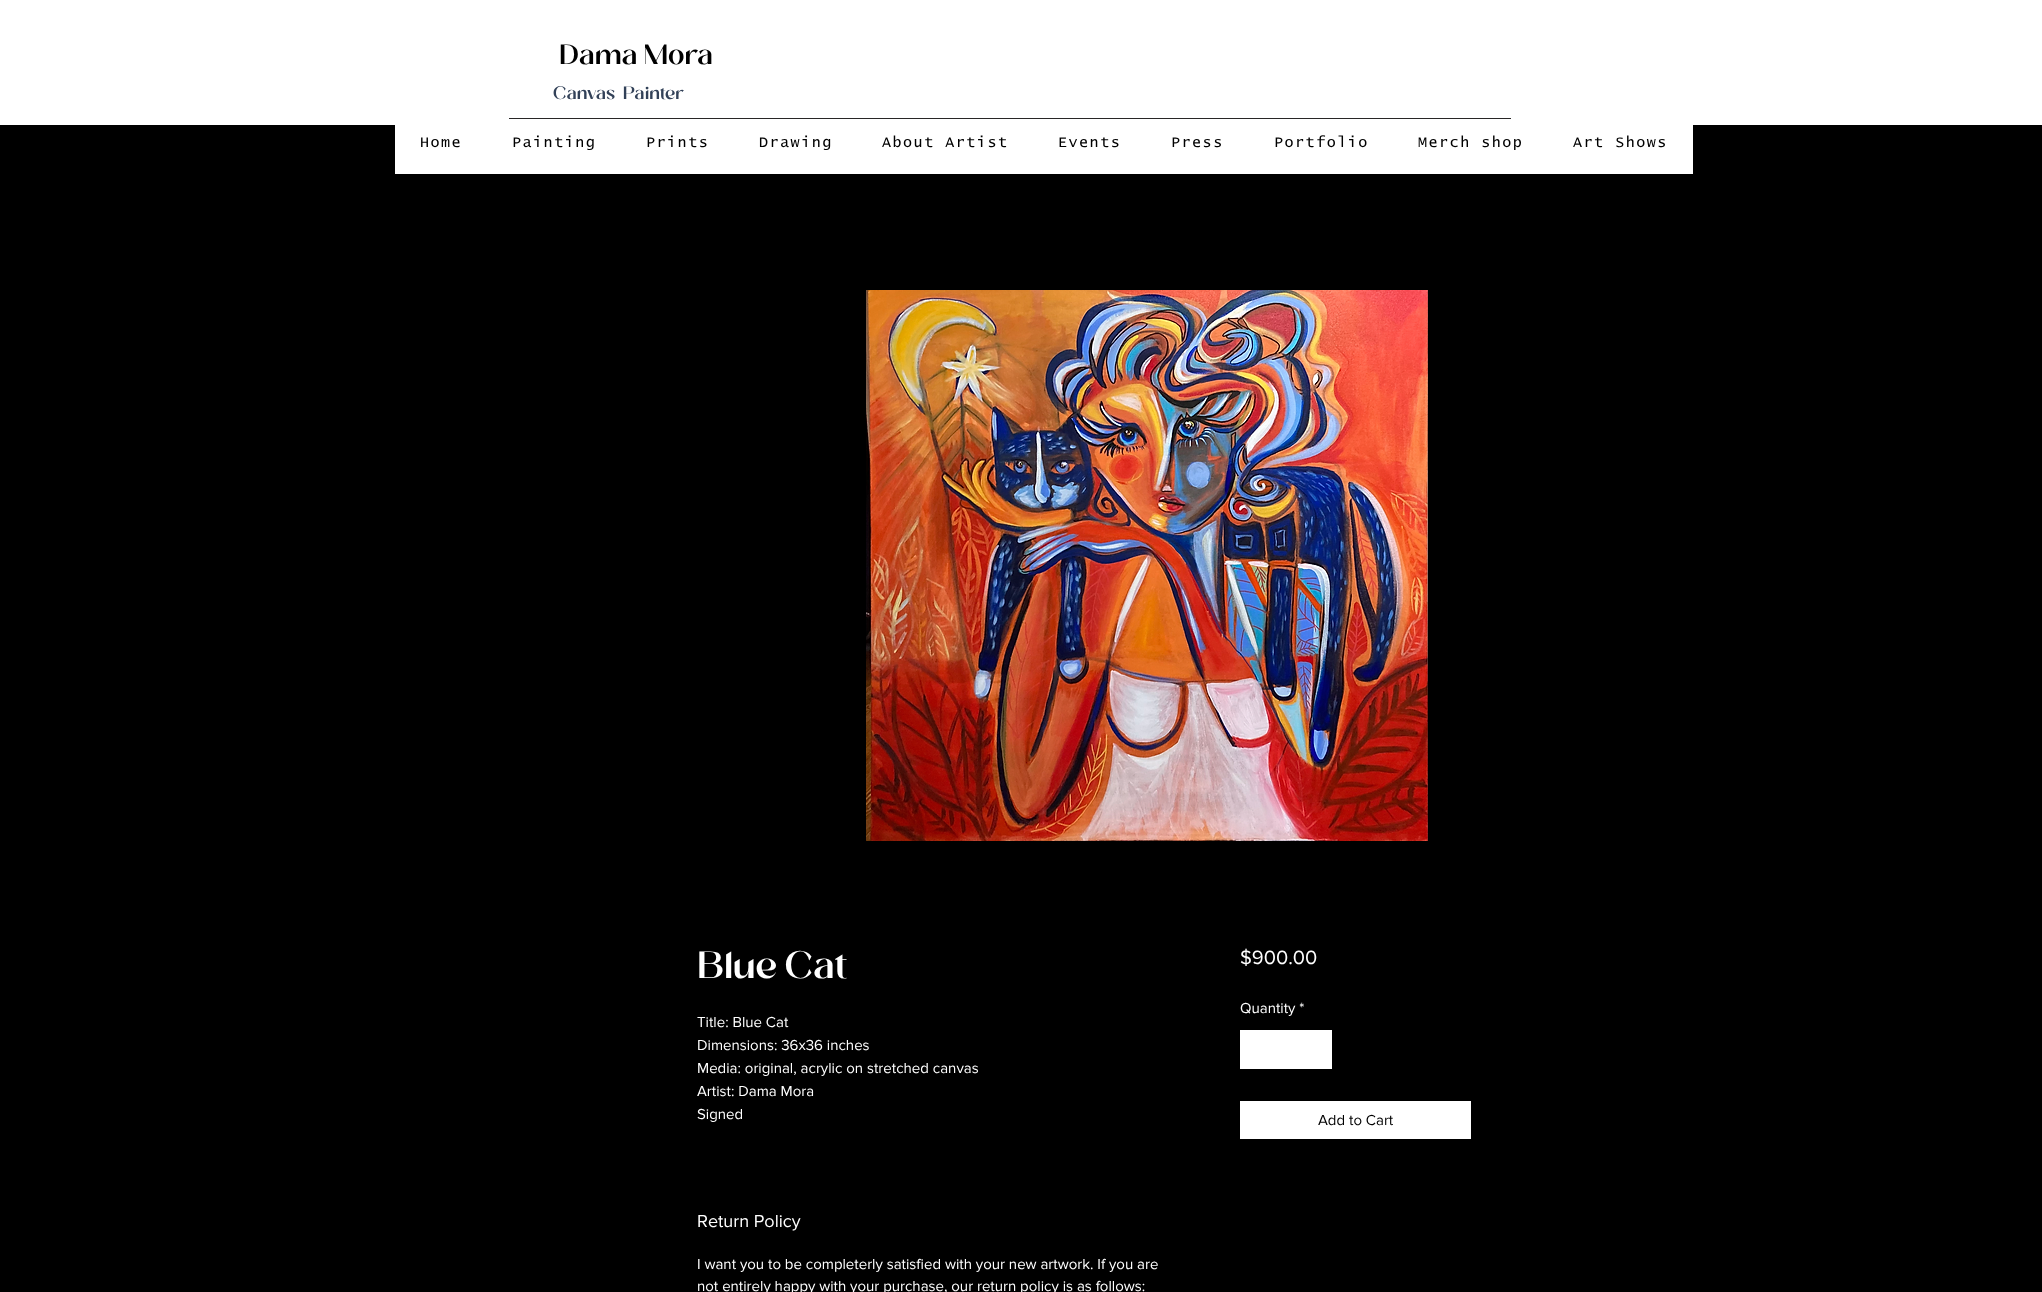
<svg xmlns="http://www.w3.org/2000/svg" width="2042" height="1292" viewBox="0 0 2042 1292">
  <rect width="100%" height="100%" fill="rgb(0,0,0)"/>
  <rect x="0" y="0" width="2042" height="125" fill="rgb(255,255,255)"/>
  <text x="559" y="64" font-family="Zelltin" font-size="28" font-weight="bold" fill="rgb(0,0,0)">Dama Mora</text>
  <text x="553" y="99" font-family="Zelltin" font-size="18" font-weight="bold" fill="rgb(50,65,88)" xml:space="preserve">Canvas  Painter</text>
  <rect x="509" y="118" width="1002" height="1" fill="rgb(40,38,38)"/>
  <rect x="395" y="125" width="1298" height="49" fill="rgb(255,255,255)"/>
  <g font-family="'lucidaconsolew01'" font-size="15" letter-spacing="1.5" fill="rgb(0,0,0)">
    <text x="420" y="147">Home</text>
    <text x="512" y="147">Painting</text>
    <text x="646" y="147">Prints</text>
    <text x="759" y="147">Drawing</text>
    <text x="882" y="147">About Artist</text>
    <text x="1058" y="147">Events</text>
    <text x="1171" y="147">Press</text>
    <text x="1274" y="147">Portfolio</text>
    <text x="1418" y="147">Merch shop</text>
    <text x="1573" y="147">Art Shows</text>
  </g>
  <image x="866" y="290" width="562" height="551" href="pic1.png"/>
  <text x="697" y="978" font-family="Zelltin" font-size="38" font-weight="bold" fill="rgb(255,255,255)">Blue Cat</text>
  <g font-family="'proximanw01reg'" font-size="15" fill="rgb(255,255,255)">
    <text>
      <tspan x="697" y="1027">Title: Blue Cat</tspan>
      <tspan x="697" y="1050">Dimensions: 36x36 inches</tspan>
      <tspan x="697" y="1073">Media: original, acrylic on stretched canvas</tspan>
      <tspan x="697" y="1096">Artist: Dama Mora</tspan>
      <tspan x="697" y="1119">Signed</tspan>
    </text>
  </g>
  <text x="697" y="1227" font-family="'proximanw01reg'" font-size="18" fill="rgb(255,255,255)">Return Policy</text>
  <g font-family="'proximanw01reg'" font-size="15" fill="rgb(255,255,255)">
    <text>
      <tspan x="697" y="1269">I want you to be completerly satisfied with your new artwork. If you are</tspan>
      <tspan x="697" y="1291">not entirely happy with your purchase, our return policy is as follows:</tspan>
    </text>
  </g>
  <text x="1240" y="964" font-family="'proximanw01reg'" font-size="20" fill="rgb(255,255,255)">$900.00</text>
  <text x="1240" y="1013" font-family="'proximanw01reg'" font-size="15" fill="rgb(255,255,255)">Quantity *</text>
  <rect x="1240" y="1030" width="92" height="39" fill="rgb(255,255,255)"/>
  <rect x="1240" y="1101" width="231" height="38" fill="rgb(255,255,255)"/>
  <text x="1318" y="1125" font-family="'proximanw01reg'" font-size="15" fill="rgb(0,0,0)">Add to Cart</text>
</svg>
